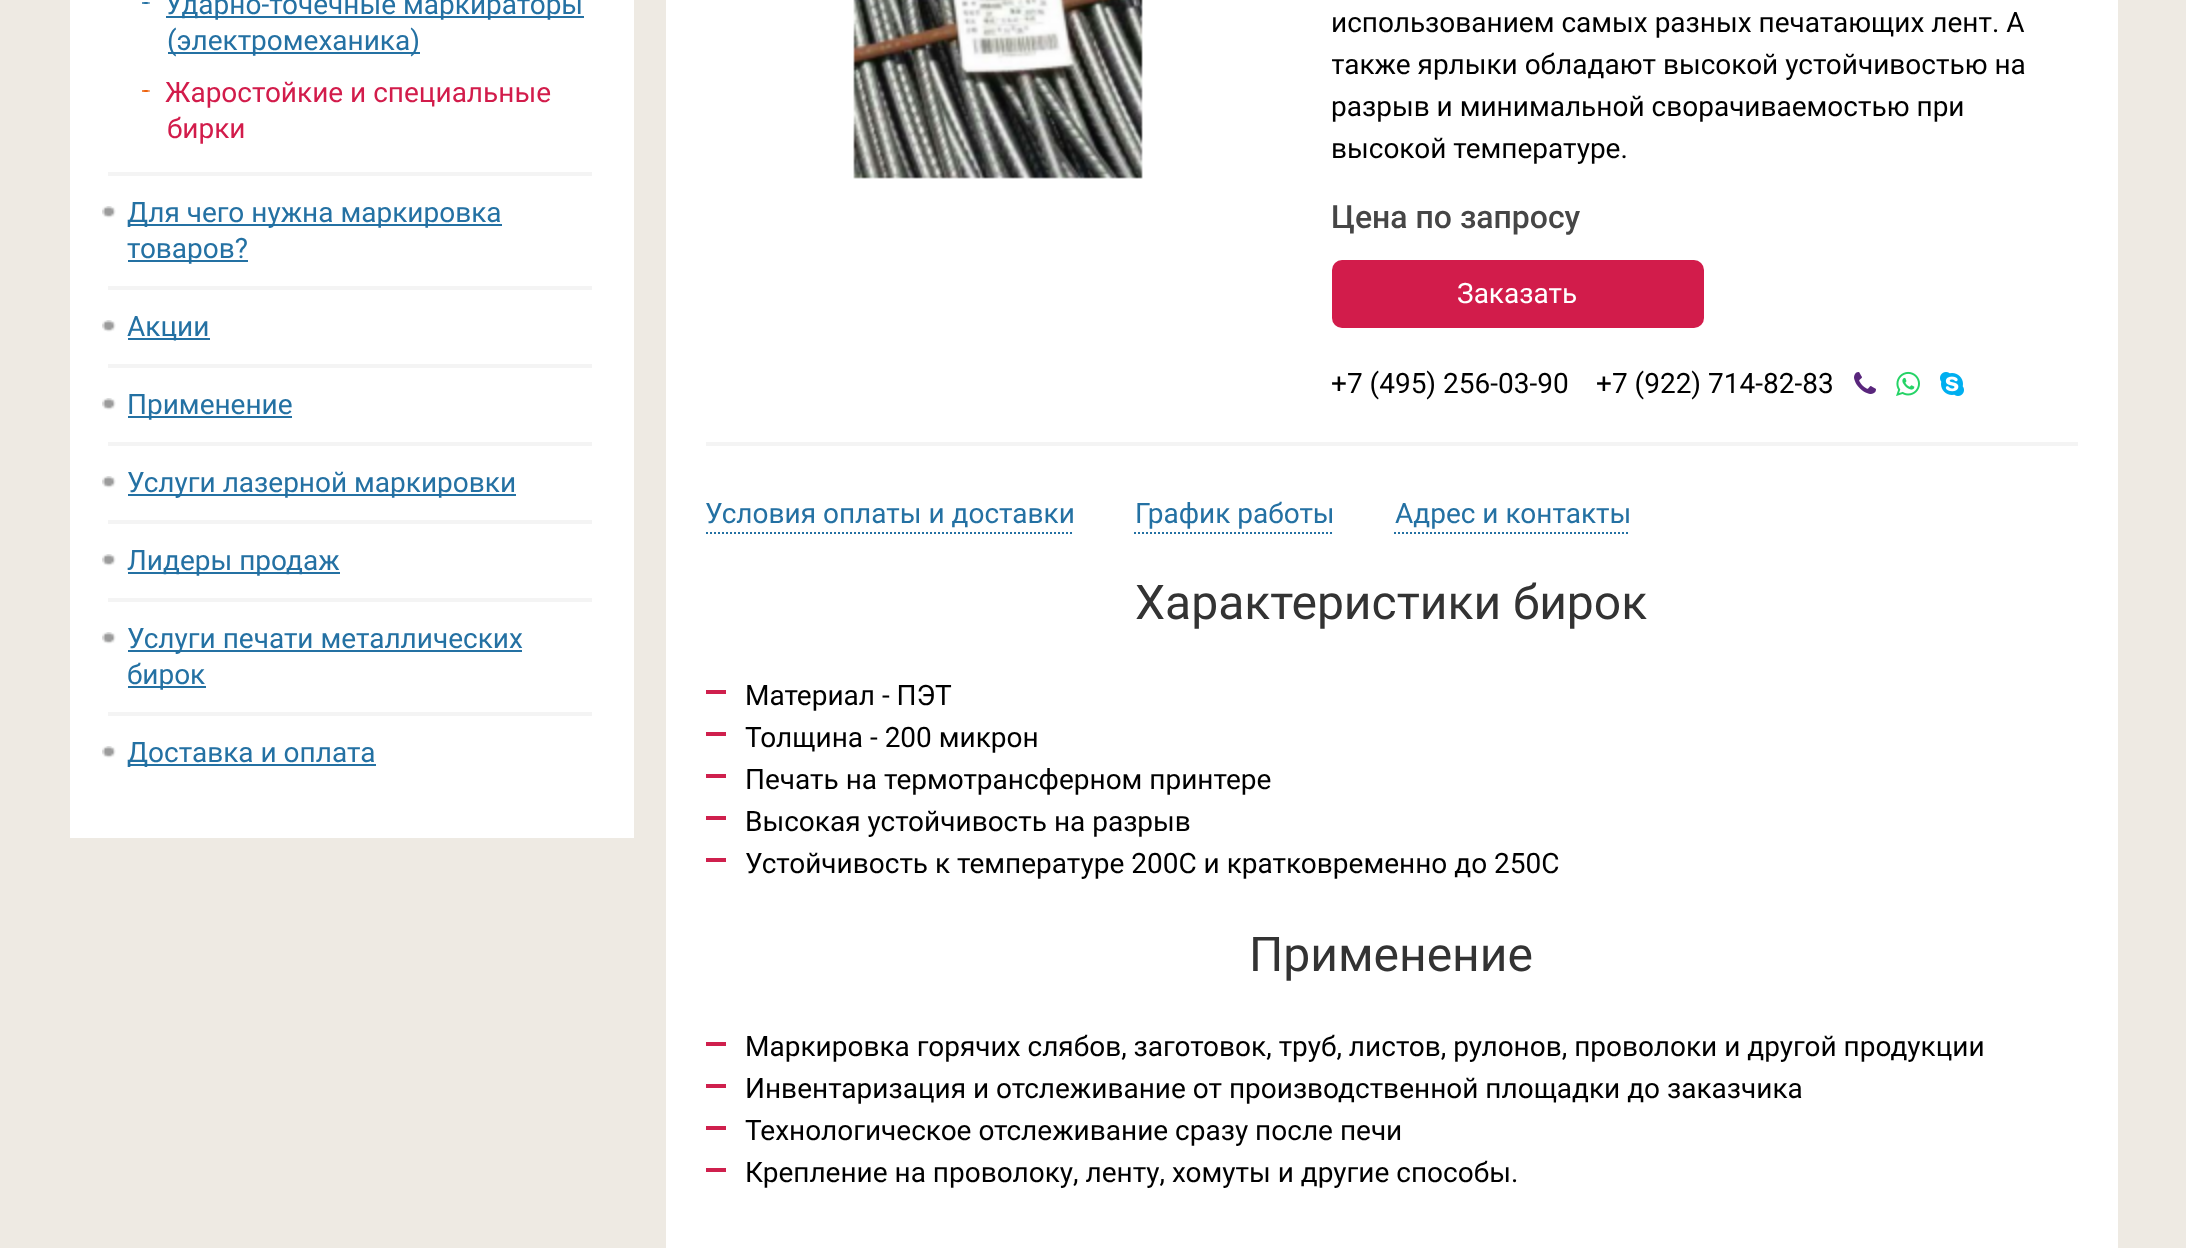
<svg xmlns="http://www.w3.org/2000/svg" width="2186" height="1248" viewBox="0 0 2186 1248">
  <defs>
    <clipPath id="clip1"><rect x="1332" y="0" width="746" height="402"/></clipPath>
  </defs>
  <rect width="100%" height="100%" fill="rgb(238,234,227)"/>
  <rect x="70" y="0" width="564" height="838" fill="rgb(255,255,255)"/>
  <rect x="108" y="172" width="484" height="4" fill="rgb(244,244,244)"/>
  <image x="142" y="2" width="8" height="2" href="pic1.png"/>
  <rect x="166" y="16" width="418" height="2" fill="rgb(36,113,163)"/>
  <text x="165" y="14" font-family="Roboto" font-size="28" fill="rgb(36,113,163)">Ударно-точечные маркираторы</text>
  <rect x="168" y="52" width="252" height="2" fill="rgb(36,113,163)"/>
  <text x="167" y="50" font-family="Roboto" font-size="28" fill="rgb(36,113,163)">(электромеханика)</text>
  <image x="142" y="90" width="8" height="2" href="pic2.png"/>
  <g font-family="Roboto" font-size="28" fill="rgb(210,28,75)">
    <text x="165" y="102">Жаростойкие и специальные</text>
    <text x="167" y="138">бирки</text>
  </g>
  <rect x="108" y="286" width="484" height="4" fill="rgb(244,244,244)"/>
  <image x="102" y="206" width="14" height="12" href="pic3.png"/>
  <rect x="128" y="224" width="374" height="2" fill="rgb(36,113,163)"/>
  <text x="127" y="222" font-family="Roboto" font-size="28" fill="rgb(36,113,163)">Для чего нужна маркировка</text>
  <rect x="128" y="260" width="120" height="2" fill="rgb(36,113,163)"/>
  <text x="127" y="258" font-family="Roboto" font-size="28" fill="rgb(36,113,163)">товаров?</text>
  <rect x="108" y="364" width="484" height="4" fill="rgb(244,244,244)"/>
  <image x="102" y="320" width="14" height="12" href="pic3.png"/>
  <rect x="128" y="338" width="82" height="2" fill="rgb(36,113,163)"/>
  <text x="127" y="336" font-family="Roboto" font-size="28" fill="rgb(36,113,163)">Акции</text>
  <rect x="108" y="442" width="484" height="4" fill="rgb(244,244,244)"/>
  <image x="102" y="398" width="14" height="12" href="pic3.png"/>
  <rect x="128" y="416" width="164" height="2" fill="rgb(36,113,163)"/>
  <text x="127" y="414" font-family="Roboto" font-size="28" fill="rgb(36,113,163)">Применение</text>
  <rect x="108" y="520" width="484" height="4" fill="rgb(244,244,244)"/>
  <image x="102" y="476" width="14" height="12" href="pic3.png"/>
  <rect x="128" y="494" width="388" height="2" fill="rgb(36,113,163)"/>
  <text x="127" y="492" font-family="Roboto" font-size="28" fill="rgb(36,113,163)">Услуги лазерной маркировки</text>
  <rect x="108" y="598" width="484" height="4" fill="rgb(244,244,244)"/>
  <image x="102" y="554" width="14" height="12" href="pic3.png"/>
  <rect x="128" y="572" width="212" height="2" fill="rgb(36,113,163)"/>
  <text x="127" y="570" font-family="Roboto" font-size="28" fill="rgb(36,113,163)">Лидеры продаж</text>
  <rect x="108" y="712" width="484" height="4" fill="rgb(244,244,244)"/>
  <image x="102" y="632" width="14" height="12" href="pic3.png"/>
  <rect x="128" y="650" width="394" height="2" fill="rgb(36,113,163)"/>
  <text x="127" y="648" font-family="Roboto" font-size="28" fill="rgb(36,113,163)">Услуги печати металлических</text>
  <rect x="128" y="686" width="78" height="2" fill="rgb(36,113,163)"/>
  <text x="127" y="684" font-family="Roboto" font-size="28" fill="rgb(36,113,163)">бирок</text>
  <image x="102" y="746" width="14" height="12" href="pic3.png"/>
  <rect x="128" y="764" width="248" height="2" fill="rgb(36,113,163)"/>
  <text x="127" y="762" font-family="Roboto" font-size="28" fill="rgb(36,113,163)">Доставка и оплата</text>
  <rect x="666" y="0" width="1452" height="1248" fill="rgb(255,255,255)"/>
  <image x="853" y="0" width="290" height="179" href="pic4.png"/>
  <text x="1331" y="32" font-family="Roboto" font-size="28" fill="rgb(0,0,0)">использованием самых разных печатающих лент. А</text>
  <g clip-path="url(#clip1)">
    <text x="1331" y="74" font-family="Roboto" font-size="28" fill="rgb(0,0,0)">также ярлыки обладают высокой устойчивостью на</text>
  </g>
  <g font-family="Roboto" font-size="28" fill="rgb(0,0,0)">
    <text>
      <tspan x="1331" y="116">разрыв и минимальной сворачиваемостью при</tspan>
      <tspan x="1331" y="158">высокой температуре.</tspan>
    </text>
  </g>
  <text x="1331" y="228" font-family="Roboto" font-size="32" font-weight="500" fill="rgb(70,70,70)">Цена по запросу</text>
  <rect x="1332" y="260" width="372" height="68" rx="10" fill="rgb(210,28,75)"/>
  <text x="1457" y="303" font-family="Roboto" font-size="28" fill="rgb(255,255,255)">Заказать</text>
  <g font-family="Roboto" font-size="28" fill="rgb(0,0,0)">
    <text x="1331" y="393">+7 (495) 256-03-90</text>
    <text x="1596" y="393">+7 (922) 714-82-83</text>
  </g>
  <image x="1854" y="372" width="22" height="22" href="pic5.png"/>
  <image x="1896" y="371" width="24" height="25" href="pic6.png"/>
  <image x="1940" y="372" width="24" height="24" href="pic7.png"/>
  <rect x="706" y="442" width="1372" height="4" fill="rgb(244,244,244)"/>
  <path d="M706 533H1074" fill="none" stroke="rgb(36,113,163)" stroke-width="2" stroke-dasharray="2 2"/>
  <text x="705" y="523" font-family="Roboto" font-size="28" fill="rgb(36,113,163)">Условия оплаты и доставки</text>
  <path d="M1134 533H1334" fill="none" stroke="rgb(36,113,163)" stroke-width="2" stroke-dasharray="2 2"/>
  <text x="1135" y="523" font-family="Roboto" font-size="28" fill="rgb(36,113,163)">График работы</text>
  <path d="M1394 533H1630" fill="none" stroke="rgb(36,113,163)" stroke-width="2" stroke-dasharray="2 2"/>
  <text x="1395" y="523" font-family="Roboto" font-size="28" fill="rgb(36,113,163)">Адрес и контакты</text>
  <text x="1135" y="619" font-family="Roboto" font-size="48" fill="rgb(51,51,51)">Характеристики бирок</text>
  <rect x="706" y="690" width="20" height="4" fill="rgb(207,32,77)"/>
  <text x="745" y="705" font-family="Roboto" font-size="28" fill="rgb(0,0,0)">Материал - ПЭТ</text>
  <rect x="706" y="732" width="20" height="4" fill="rgb(207,32,77)"/>
  <text x="745" y="747" font-family="Roboto" font-size="28" fill="rgb(0,0,0)">Толщина - 200 микрон</text>
  <rect x="706" y="774" width="20" height="4" fill="rgb(207,32,77)"/>
  <text x="745" y="789" font-family="Roboto" font-size="28" fill="rgb(0,0,0)">Печать на термотрансферном принтере</text>
  <rect x="706" y="816" width="20" height="4" fill="rgb(207,32,77)"/>
  <text x="745" y="831" font-family="Roboto" font-size="28" fill="rgb(0,0,0)">Высокая устойчивость на разрыв</text>
  <rect x="706" y="858" width="20" height="4" fill="rgb(207,32,77)"/>
  <text x="745" y="873" font-family="Roboto" font-size="28" fill="rgb(0,0,0)">Устойчивость к температуре 200С и кратковременно до 250С</text>
  <text x="1249" y="971" font-family="Roboto" font-size="48" fill="rgb(51,51,51)">Применение</text>
  <rect x="706" y="1042" width="20" height="4" fill="rgb(207,32,77)"/>
  <text x="745" y="1056" font-family="Roboto" font-size="28" fill="rgb(0,0,0)">Маркировка горячих слябов, заготовок, труб, листов, рулонов, проволоки и другой продукции</text>
  <rect x="706" y="1084" width="20" height="4" fill="rgb(207,32,77)"/>
  <text x="745" y="1098" font-family="Roboto" font-size="28" fill="rgb(0,0,0)">Инвентаризация и отслеживание от производственной площадки до заказчика</text>
  <rect x="706" y="1126" width="20" height="4" fill="rgb(207,32,77)"/>
  <text x="745" y="1140" font-family="Roboto" font-size="28" fill="rgb(0,0,0)">Технологическое отслеживание сразу после печи</text>
  <rect x="706" y="1168" width="20" height="4" fill="rgb(207,32,77)"/>
  <text x="745" y="1182" font-family="Roboto" font-size="28" fill="rgb(0,0,0)">Крепление на проволоку, ленту, хомуты и другие способы.</text>
</svg>
